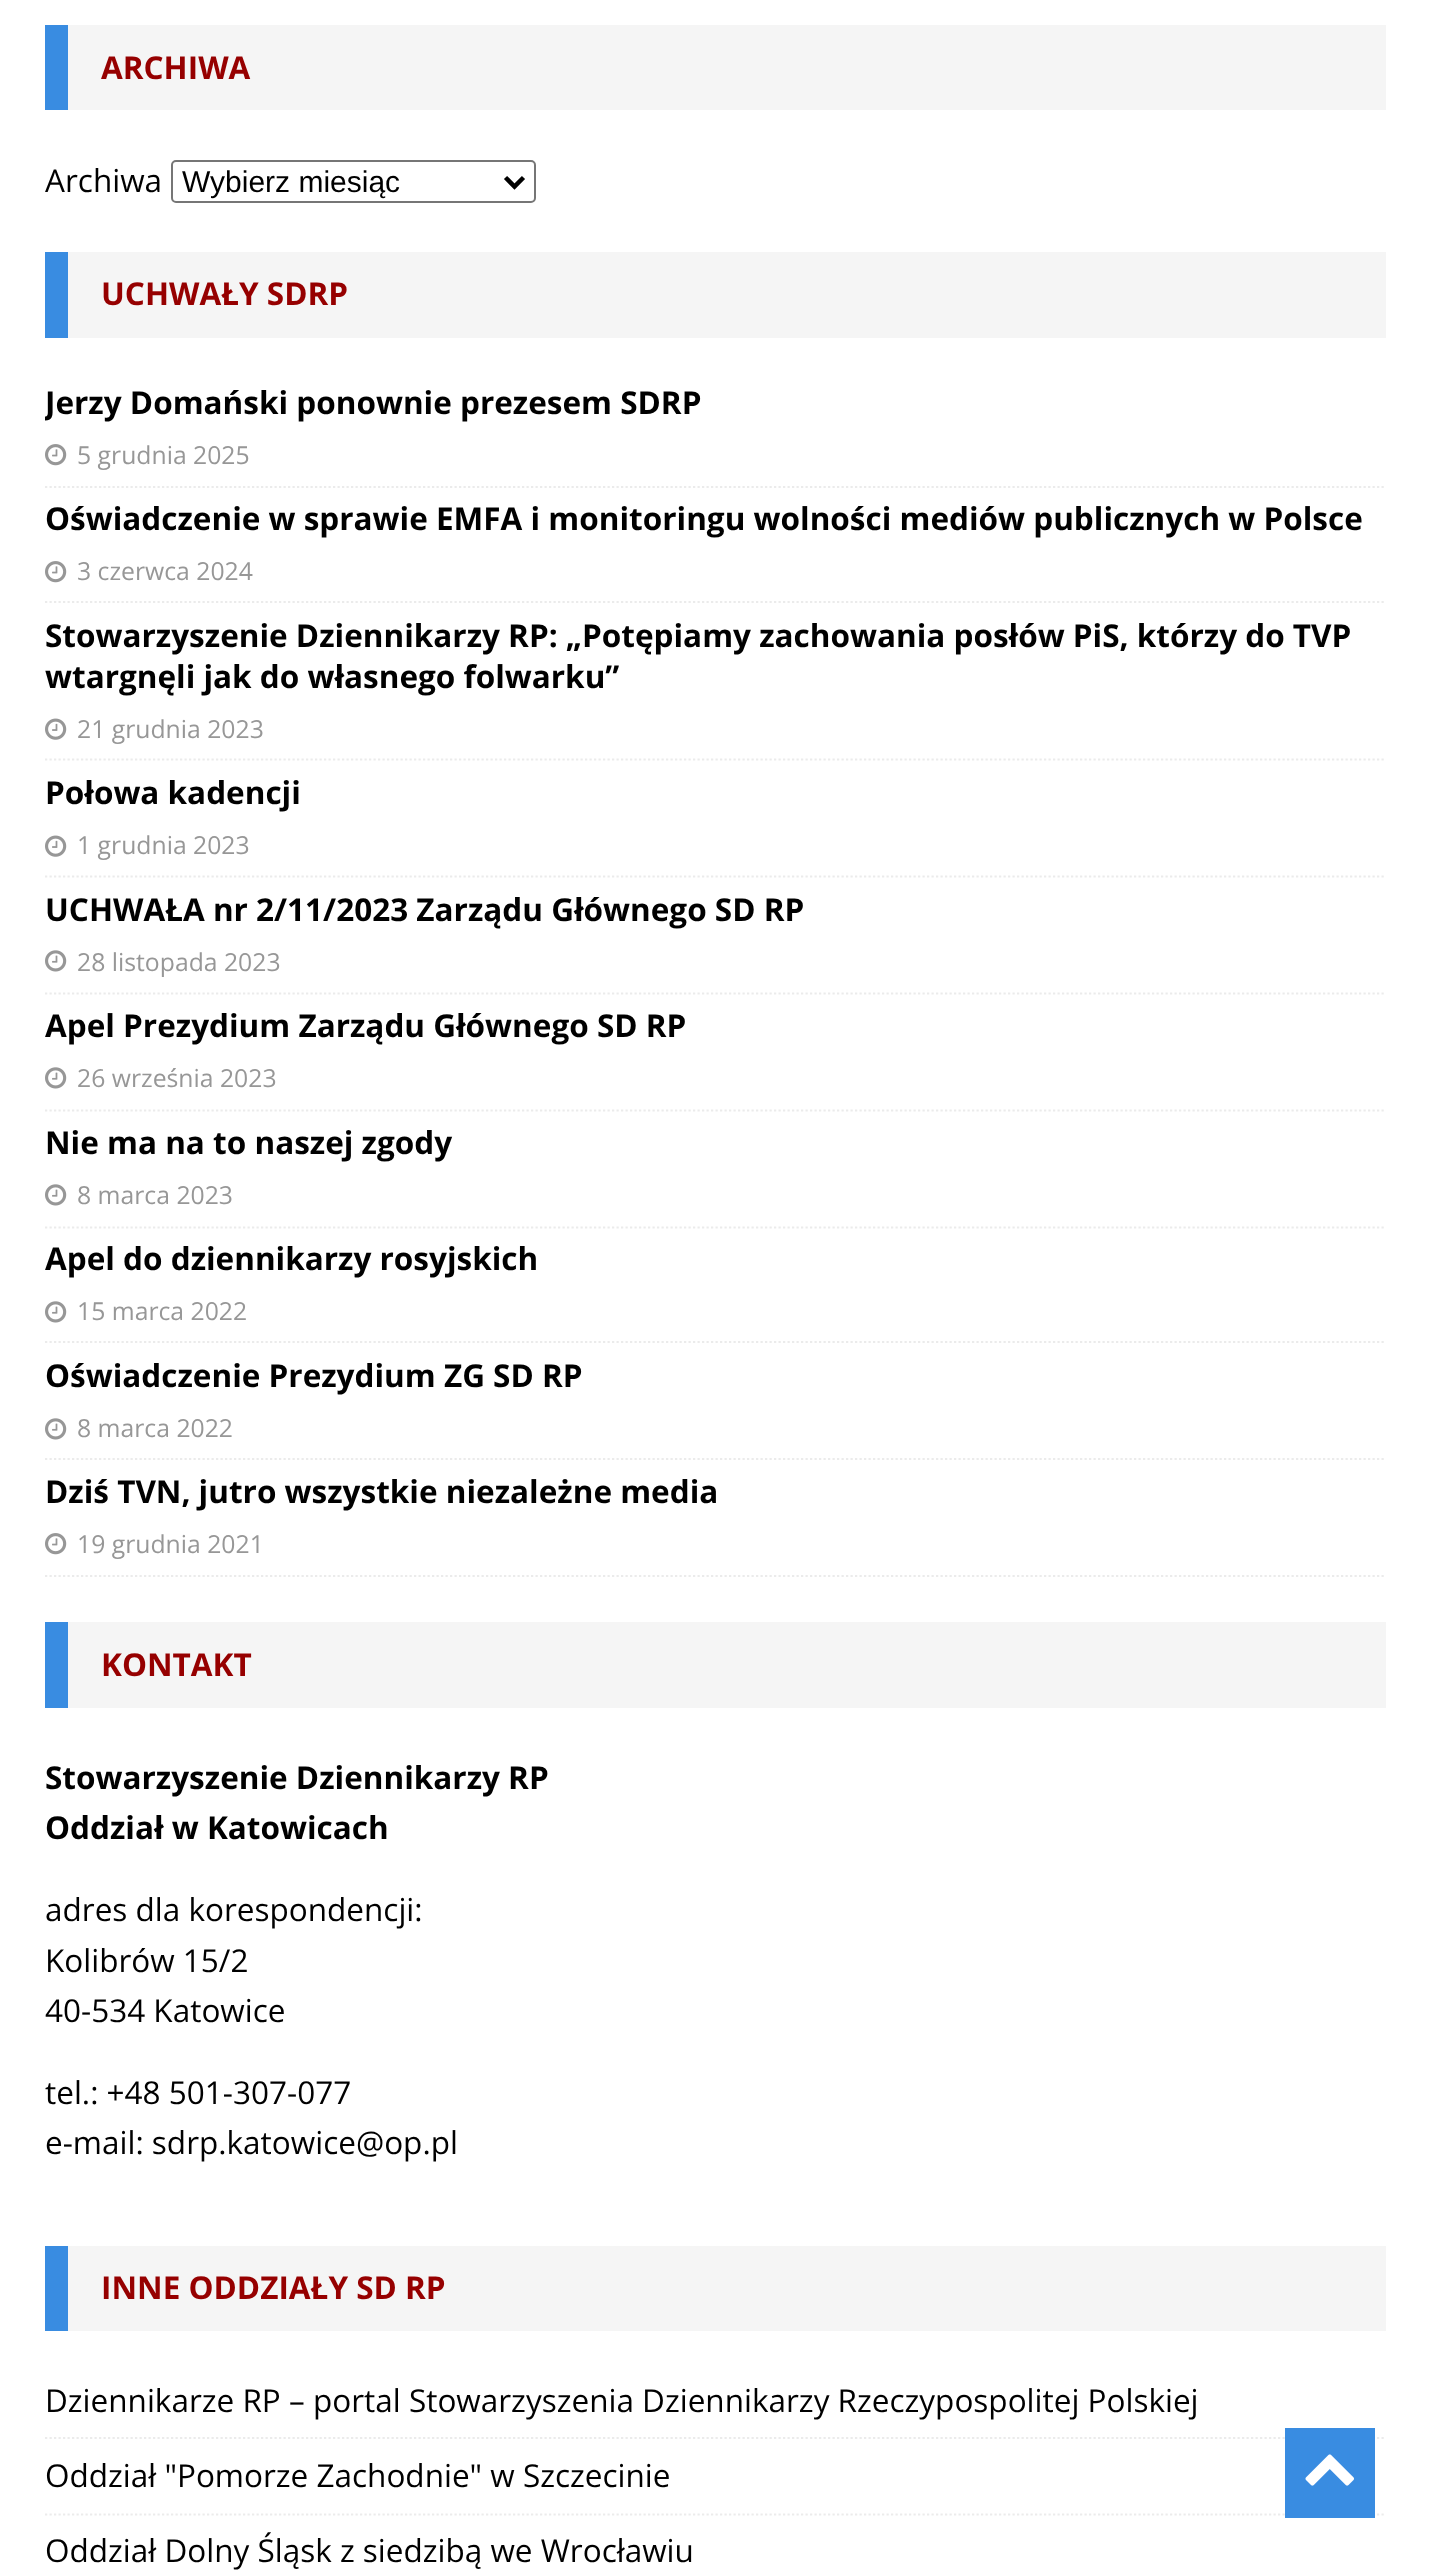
<svg xmlns="http://www.w3.org/2000/svg" width="1430" height="2573" viewBox="0 0 1430 2573">
  <defs>
    <clipPath id="clip1"><rect x="45" y="383" width="1341" height="92"/></clipPath>
    <clipPath id="clip2"><rect x="45" y="252" width="1341" height="1325"/></clipPath>
  </defs>
  <rect width="100%" height="100%" fill="rgb(255,255,255)"/>
  <rect x="68" y="25" width="1318" height="85" fill="rgb(245,245,245)"/>
  <rect x="45" y="25" width="23" height="85" fill="rgb(57,140,225)"/>
  <text x="101" y="79" font-family="Open Sans" font-size="31.5" font-weight="bold" fill="rgb(150,0,0)">ARCHIWA</text>
  <text x="45" y="192" font-family="Open Sans" font-size="31.5" fill="rgb(0,0,0)">Archiwa</text>
  <rect x="172" y="161" width="363" height="41" rx="4" fill="none" stroke="rgb(118,118,118)" stroke-width="2"/>
  <path d="M505.5 177.5L514.5 186.5L523.5 177.5" fill="none" stroke="rgb(0,0,0)" stroke-width="4.5"/>
  <text x="182" y="192" font-family="Liberation Sans" font-size="30" fill="rgb(0,0,0)">Wybierz miesiąc</text>
  <rect x="68" y="252" width="1318" height="86" fill="rgb(245,245,245)"/>
  <rect x="45" y="252" width="23" height="86" fill="rgb(57,140,225)"/>
  <text x="101" y="305" font-family="Open Sans" font-size="31.5" font-weight="bold" fill="rgb(150,0,0)">UCHWAŁY SDRP</text>
  <path d="M45 487H1386" fill="none" stroke="rgb(235,235,235)" stroke-width="2.2" stroke-dasharray="2.25 2.25"/>
  <g clip-path="url(#clip1)">
    <text x="45" y="414" font-family="Open Sans" font-size="31.5" font-weight="bold" fill="rgb(0,0,0)">Jerzy Domański ponownie prezesem SDRP</text>
  </g>
  <image x="45" y="444" width="22" height="22" href="pic1.png"/>
  <text x="77" y="464" font-family="Open Sans" font-size="24.75" fill="rgb(151,151,151)">5 grudnia 2025</text>
  <path d="M45 602H1386" fill="none" stroke="rgb(235,235,235)" stroke-width="2.2" stroke-dasharray="2.25 2.25"/>
  <text x="45" y="530" font-family="Open Sans" font-size="31.5" font-weight="bold" fill="rgb(0,0,0)">Oświadczenie w sprawie EMFA i monitoringu wolności mediów publicznych w Polsce</text>
  <image x="45" y="561" width="22" height="22" href="pic1.png"/>
  <text x="77" y="580" font-family="Open Sans" font-size="24.75" fill="rgb(151,151,151)">3 czerwca 2024</text>
  <path d="M45 759.5H1386" fill="none" stroke="rgb(235,235,235)" stroke-width="2.2" stroke-dasharray="2.25 2.25"/>
  <g font-family="Open Sans" font-size="31.5" font-weight="bold" fill="rgb(0,0,0)">
    <text>
      <tspan x="45" y="647">Stowarzyszenie Dziennikarzy RP: „Potępiamy zachowania posłów PiS, którzy do TVP</tspan>
      <tspan x="45" y="688">wtargnęli jak do własnego folwarku”</tspan>
    </text>
  </g>
  <image x="45" y="718" width="22" height="22" href="pic2.png"/>
  <text x="77" y="738" font-family="Open Sans" font-size="24.75" fill="rgb(151,151,151)">21 grudnia 2023</text>
  <path d="M45 876.5H1386" fill="none" stroke="rgb(235,235,235)" stroke-width="2.2" stroke-dasharray="2.25 2.25"/>
  <text x="45" y="804" font-family="Open Sans" font-size="31.5" font-weight="bold" fill="rgb(0,0,0)">Połowa kadencji</text>
  <image x="45" y="835" width="22" height="22" href="pic2.png"/>
  <text x="77" y="854" font-family="Open Sans" font-size="24.75" fill="rgb(151,151,151)">1 grudnia 2023</text>
  <path d="M45 993.5H1386" fill="none" stroke="rgb(235,235,235)" stroke-width="2.2" stroke-dasharray="2.25 2.25"/>
  <text x="45" y="921" font-family="Open Sans" font-size="31.5" font-weight="bold" fill="rgb(0,0,0)">UCHWAŁA nr 2/11/2023 Zarządu Głównego SD RP</text>
  <image x="45" y="950" width="22" height="22" href="pic3.png"/>
  <text x="77" y="971" font-family="Open Sans" font-size="24.75" fill="rgb(151,151,151)">28 listopada 2023</text>
  <path d="M45 1110.5H1386" fill="none" stroke="rgb(235,235,235)" stroke-width="2.2" stroke-dasharray="2.25 2.25"/>
  <text x="45" y="1037" font-family="Open Sans" font-size="31.5" font-weight="bold" fill="rgb(0,0,0)">Apel Prezydium Zarządu Głównego SD RP</text>
  <image x="45" y="1067" width="22" height="22" href="pic3.png"/>
  <text x="77" y="1087" font-family="Open Sans" font-size="24.75" fill="rgb(151,151,151)">26 września 2023</text>
  <path d="M45 1227.5H1386" fill="none" stroke="rgb(235,235,235)" stroke-width="2.2" stroke-dasharray="2.25 2.25"/>
  <text x="45" y="1154" font-family="Open Sans" font-size="31.5" font-weight="bold" fill="rgb(0,0,0)">Nie ma na to naszej zgody</text>
  <image x="45" y="1184" width="22" height="22" href="pic3.png"/>
  <text x="77" y="1204" font-family="Open Sans" font-size="24.75" fill="rgb(151,151,151)">8 marca 2023</text>
  <path d="M45 1342H1386" fill="none" stroke="rgb(235,235,235)" stroke-width="2.2" stroke-dasharray="2.25 2.25"/>
  <text x="45" y="1270" font-family="Open Sans" font-size="31.5" font-weight="bold" fill="rgb(0,0,0)">Apel do dziennikarzy rosyjskich</text>
  <image x="45" y="1301" width="22" height="22" href="pic3.png"/>
  <text x="77" y="1320" font-family="Open Sans" font-size="24.75" fill="rgb(151,151,151)">15 marca 2022</text>
  <path d="M45 1459H1386" fill="none" stroke="rgb(235,235,235)" stroke-width="2.2" stroke-dasharray="2.25 2.25"/>
  <text x="45" y="1387" font-family="Open Sans" font-size="31.5" font-weight="bold" fill="rgb(0,0,0)">Oświadczenie Prezydium ZG SD RP</text>
  <image x="45" y="1418" width="22" height="22" href="pic3.png"/>
  <text x="77" y="1437" font-family="Open Sans" font-size="24.75" fill="rgb(151,151,151)">8 marca 2022</text>
  <g clip-path="url(#clip2)">
    <path d="M45 1576H1386" fill="none" stroke="rgb(235,235,235)" stroke-width="2.2" stroke-dasharray="2.25 2.25"/>
  </g>
  <text x="45" y="1503" font-family="Open Sans" font-size="31.5" font-weight="bold" fill="rgb(0,0,0)">Dziś TVN, jutro wszystkie niezależne media</text>
  <image x="45" y="1533" width="22" height="22" href="pic1.png"/>
  <text x="77" y="1553" font-family="Open Sans" font-size="24.75" fill="rgb(151,151,151)">19 grudnia 2021</text>
  <rect x="68" y="1622" width="1318" height="86" fill="rgb(245,245,245)"/>
  <rect x="45" y="1622" width="23" height="86" fill="rgb(57,140,225)"/>
  <text x="101" y="1676" font-family="Open Sans" font-size="31.5" font-weight="bold" fill="rgb(150,0,0)">KONTAKT</text>
  <g font-family="Open Sans" font-size="31.5" font-weight="bold" fill="rgb(0,0,0)">
    <text>
      <tspan x="45" y="1789">Stowarzyszenie Dziennikarzy RP</tspan>
      <tspan x="45" y="1839">Oddział w Katowicach</tspan>
    </text>
  </g>
  <g font-family="Open Sans" font-size="31.5" fill="rgb(0,0,0)">
    <text>
      <tspan x="45" y="1921">adres dla korespondencji:</tspan>
      <tspan x="45" y="1972">Kolibrów 15/2</tspan>
      <tspan x="45" y="2022">40-534 Katowice</tspan>
    </text>
    <text>
      <tspan x="45" y="2104">tel.: +48 501-307-077</tspan>
      <tspan x="45" y="2154">e-mail: sdrp.katowice@op.pl</tspan>
    </text>
  </g>
  <rect x="68" y="2246" width="1318" height="85" fill="rgb(245,245,245)"/>
  <rect x="45" y="2246" width="23" height="85" fill="rgb(57,140,225)"/>
  <text x="101" y="2299" font-family="Open Sans" font-size="31.5" font-weight="bold" fill="rgb(150,0,0)">INNE ODDZIAŁY SD RP</text>
  <path d="M45 2438H1386" fill="none" stroke="rgb(235,235,235)" stroke-width="2.2" stroke-dasharray="2.25 2.25"/>
  <text x="45" y="2412" font-family="Open Sans" font-size="31.5" fill="rgb(0,0,0)">Dziennikarze RP – portal Stowarzyszenia Dziennikarzy Rzeczypospolitej Polskiej</text>
  <path d="M45 2514.5H1386" fill="none" stroke="rgb(235,235,235)" stroke-width="2.2" stroke-dasharray="2.25 2.25"/>
  <g font-family="Open Sans" font-size="31.5" fill="rgb(0,0,0)">
    <text x="45" y="2487">Oddział "Pomorze Zachodnie" w Szczecinie</text>
    <text x="45" y="2562">Oddział Dolny Śląsk z siedzibą we Wrocławiu</text>
  </g>
  <rect x="1285" y="2428" width="90" height="90" fill="rgb(57,140,225)"/>
  <image x="1305" y="2454" width="49" height="32" href="pic4.png"/>
</svg>
